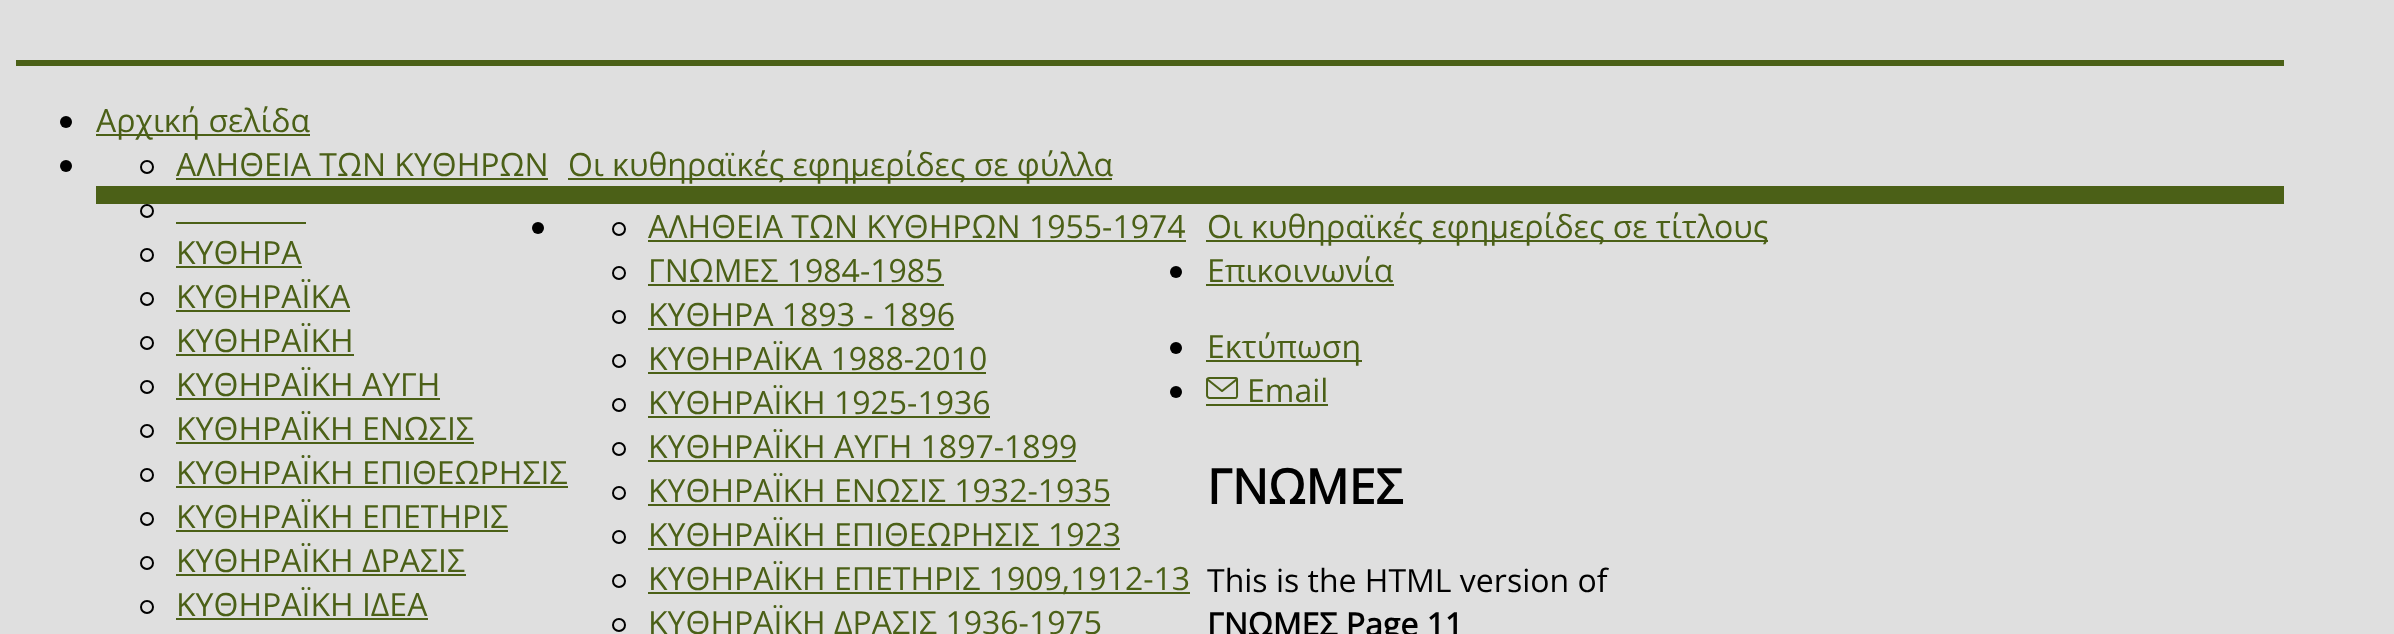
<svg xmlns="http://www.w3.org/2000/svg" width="2394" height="634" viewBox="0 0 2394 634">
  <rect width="100%" height="100%" fill="rgb(223,223,223)"/>
  <rect x="16" y="60" width="2268" height="6" fill="rgb(75,96,23)"/>
  <circle cx="66" cy="122" r="6" fill="rgb(0,0,0)"/>
  <rect x="96" y="134" width="214" height="2" fill="rgb(75,96,23)"/>
  <text x="96" y="132" font-family="Open Sans" font-size="32" fill="rgb(75,96,23)">Αρχική σελίδα</text>
  <circle cx="66" cy="166" r="6" fill="rgb(0,0,0)"/>
  <circle cx="147" cy="167" r="6" fill="none" stroke="rgb(0,0,0)" stroke-width="2"/>
  <text x="176" y="176" font-family="Open Sans" font-size="32" fill="rgb(75,96,23)">ΑΛΗΘΕΙΑ ΤΩΝ ΚΥΘΗΡΩΝ</text>
  <rect x="176" y="178" width="372" height="2" fill="rgb(75,96,23)"/>
  <circle cx="147" cy="211" r="6" fill="none" stroke="rgb(0,0,0)" stroke-width="2"/>
  <rect x="176" y="222" width="130" height="2" fill="rgb(75,96,23)"/>
  <circle cx="147" cy="255" r="6" fill="none" stroke="rgb(0,0,0)" stroke-width="2"/>
  <text x="176" y="264" font-family="Open Sans" font-size="32" fill="rgb(75,96,23)">ΚΥΘΗΡΑ</text>
  <rect x="176" y="266" width="126" height="2" fill="rgb(75,96,23)"/>
  <circle cx="147" cy="299" r="6" fill="none" stroke="rgb(0,0,0)" stroke-width="2"/>
  <text x="176" y="308" font-family="Open Sans" font-size="32" fill="rgb(75,96,23)">ΚΥΘΗΡΑΪΚΑ</text>
  <rect x="176" y="310" width="174" height="2" fill="rgb(75,96,23)"/>
  <circle cx="147" cy="343" r="6" fill="none" stroke="rgb(0,0,0)" stroke-width="2"/>
  <text x="176" y="352" font-family="Open Sans" font-size="32" fill="rgb(75,96,23)">ΚΥΘΗΡΑΪΚΗ</text>
  <rect x="176" y="354" width="178" height="2" fill="rgb(75,96,23)"/>
  <circle cx="147" cy="387" r="6" fill="none" stroke="rgb(0,0,0)" stroke-width="2"/>
  <text x="176" y="396" font-family="Open Sans" font-size="32" fill="rgb(75,96,23)">ΚΥΘΗΡΑΪΚΗ ΑΥΓΗ</text>
  <rect x="176" y="398" width="264" height="2" fill="rgb(75,96,23)"/>
  <circle cx="147" cy="431" r="6" fill="none" stroke="rgb(0,0,0)" stroke-width="2"/>
  <text x="176" y="440" font-family="Open Sans" font-size="32" fill="rgb(75,96,23)">ΚΥΘΗΡΑΪΚΗ ΕΝΩΣΙΣ</text>
  <rect x="176" y="442" width="298" height="2" fill="rgb(75,96,23)"/>
  <circle cx="147" cy="475" r="6" fill="none" stroke="rgb(0,0,0)" stroke-width="2"/>
  <text x="176" y="484" font-family="Open Sans" font-size="32" fill="rgb(75,96,23)">ΚΥΘΗΡΑΪΚΗ ΕΠΙΘΕΩΡΗΣΙΣ</text>
  <rect x="176" y="486" width="392" height="2" fill="rgb(75,96,23)"/>
  <circle cx="147" cy="519" r="6" fill="none" stroke="rgb(0,0,0)" stroke-width="2"/>
  <text x="176" y="528" font-family="Open Sans" font-size="32" fill="rgb(75,96,23)">ΚΥΘΗΡΑΪΚΗ ΕΠΕΤΗΡΙΣ</text>
  <rect x="176" y="530" width="332" height="2" fill="rgb(75,96,23)"/>
  <circle cx="147" cy="563" r="6" fill="none" stroke="rgb(0,0,0)" stroke-width="2"/>
  <text x="176" y="572" font-family="Open Sans" font-size="32" fill="rgb(75,96,23)">ΚΥΘΗΡΑΪΚΗ ΔΡΑΣΙΣ</text>
  <rect x="176" y="574" width="290" height="2" fill="rgb(75,96,23)"/>
  <circle cx="147" cy="607" r="6" fill="none" stroke="rgb(0,0,0)" stroke-width="2"/>
  <text x="176" y="616" font-family="Open Sans" font-size="32" fill="rgb(75,96,23)">ΚΥΘΗΡΑΪΚΗ ΙΔΕΑ</text>
  <rect x="176" y="618" width="252" height="2" fill="rgb(75,96,23)"/>
  <rect x="568" y="178" width="544" height="2" fill="rgb(75,96,23)"/>
  <text x="568" y="176" font-family="Open Sans" font-size="32" fill="rgb(75,96,23)">Οι κυθηραϊκές εφημερίδες σε φύλλα</text>
  <rect x="96" y="186" width="2188" height="18" fill="rgb(75,96,23)"/>
  <circle cx="538" cy="228" r="6" fill="rgb(0,0,0)"/>
  <circle cx="619" cy="229" r="6" fill="none" stroke="rgb(0,0,0)" stroke-width="2"/>
  <text x="648" y="238" font-family="Open Sans" font-size="32" fill="rgb(75,96,23)">ΑΛΗΘΕΙΑ ΤΩΝ ΚΥΘΗΡΩΝ 1955-1974</text>
  <rect x="648" y="240" width="538" height="2" fill="rgb(75,96,23)"/>
  <circle cx="619" cy="273" r="6" fill="none" stroke="rgb(0,0,0)" stroke-width="2"/>
  <text x="648" y="282" font-family="Open Sans" font-size="32" fill="rgb(75,96,23)">ΓΝΩΜΕΣ 1984-1985</text>
  <rect x="648" y="284" width="296" height="2" fill="rgb(75,96,23)"/>
  <circle cx="619" cy="317" r="6" fill="none" stroke="rgb(0,0,0)" stroke-width="2"/>
  <text x="648" y="326" font-family="Open Sans" font-size="32" fill="rgb(75,96,23)">ΚΥΘΗΡΑ 1893 - 1896</text>
  <rect x="648" y="328" width="306" height="2" fill="rgb(75,96,23)"/>
  <circle cx="619" cy="361" r="6" fill="none" stroke="rgb(0,0,0)" stroke-width="2"/>
  <text x="648" y="370" font-family="Open Sans" font-size="32" fill="rgb(75,96,23)">ΚΥΘΗΡΑΪΚΑ 1988-2010</text>
  <rect x="648" y="372" width="338" height="2" fill="rgb(75,96,23)"/>
  <circle cx="619" cy="405" r="6" fill="none" stroke="rgb(0,0,0)" stroke-width="2"/>
  <text x="648" y="414" font-family="Open Sans" font-size="32" fill="rgb(75,96,23)">ΚΥΘΗΡΑΪΚΗ 1925-1936</text>
  <rect x="648" y="416" width="342" height="2" fill="rgb(75,96,23)"/>
  <circle cx="619" cy="449" r="6" fill="none" stroke="rgb(0,0,0)" stroke-width="2"/>
  <text x="648" y="458" font-family="Open Sans" font-size="32" fill="rgb(75,96,23)">ΚΥΘΗΡΑΪΚΗ ΑΥΓΗ 1897-1899</text>
  <rect x="648" y="460" width="428" height="2" fill="rgb(75,96,23)"/>
  <circle cx="619" cy="493" r="6" fill="none" stroke="rgb(0,0,0)" stroke-width="2"/>
  <text x="648" y="502" font-family="Open Sans" font-size="32" fill="rgb(75,96,23)">ΚΥΘΗΡΑΪΚΗ ΕΝΩΣΙΣ 1932-1935</text>
  <rect x="648" y="504" width="462" height="2" fill="rgb(75,96,23)"/>
  <circle cx="619" cy="537" r="6" fill="none" stroke="rgb(0,0,0)" stroke-width="2"/>
  <text x="648" y="546" font-family="Open Sans" font-size="32" fill="rgb(75,96,23)">ΚΥΘΗΡΑΪΚΗ ΕΠΙΘΕΩΡΗΣΙΣ 1923</text>
  <rect x="648" y="548" width="472" height="2" fill="rgb(75,96,23)"/>
  <circle cx="619" cy="581" r="6" fill="none" stroke="rgb(0,0,0)" stroke-width="2"/>
  <rect x="648" y="592" width="542" height="2" fill="rgb(75,96,23)"/>
  <text x="648" y="590" font-family="Open Sans" font-size="32" fill="rgb(75,96,23)">ΚΥΘΗΡΑΪΚΗ ΕΠΕΤΗΡΙΣ 1909,1912-13</text>
  <circle cx="619" cy="625" r="6" fill="none" stroke="rgb(0,0,0)" stroke-width="2"/>
  <text x="648" y="634" font-family="Open Sans" font-size="32" fill="rgb(75,96,23)">ΚΥΘΗΡΑΪΚΗ ΔΡΑΣΙΣ 1936-1975</text>
  <rect x="1206" y="240" width="562" height="2" fill="rgb(75,96,23)"/>
  <text x="1207" y="238" font-family="Open Sans" font-size="32" fill="rgb(75,96,23)">Οι κυθηραϊκές εφημερίδες σε τίτλους</text>
  <circle cx="1176" cy="272" r="6" fill="rgb(0,0,0)"/>
  <text x="1207" y="282" font-family="Open Sans" font-size="32" fill="rgb(75,96,23)">Επικοινωνία</text>
  <rect x="1206" y="284" width="188" height="2" fill="rgb(75,96,23)"/>
  <circle cx="1176" cy="348" r="6" fill="rgb(0,0,0)"/>
  <rect x="1206" y="360" width="156" height="2" fill="rgb(75,96,23)"/>
  <text x="1207" y="358" font-family="Open Sans" font-size="32" fill="rgb(75,96,23)">Εκτύπωση</text>
  <circle cx="1176" cy="392" r="6" fill="rgb(0,0,0)"/>
  <image x="1206" y="377" width="33" height="22" href="pic1.png"/>
  <text x="1247" y="402" font-family="Open Sans" font-size="32" fill="rgb(75,96,23)">Email</text>
  <rect x="1206" y="404" width="122" height="2" fill="rgb(75,96,23)"/>
  <text x="1207" y="504" font-family="Open Sans" font-size="48" font-weight="bold" fill="rgb(0,0,0)">ΓΝΩΜΕΣ</text>
  <text x="1207" y="592" font-family="Open Sans" font-size="32" fill="rgb(0,0,0)">This is the HTML version of</text>
  <text x="1207" y="636" font-family="Open Sans" font-size="32" font-weight="bold" fill="rgb(0,0,0)">ΓΝΩΜΕΣ Page 11</text>
</svg>
